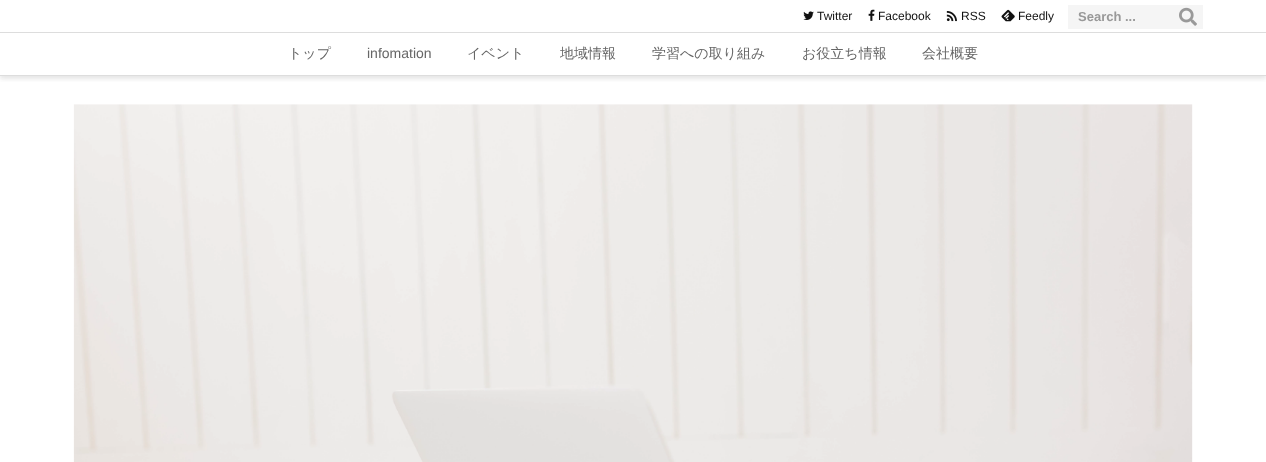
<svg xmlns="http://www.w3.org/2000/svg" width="1266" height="462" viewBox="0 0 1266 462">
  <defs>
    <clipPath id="clip1"><rect x="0" y="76" width="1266" height="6"/></clipPath>
  </defs>
  <rect width="100%" height="100%" fill="rgb(255,255,255)"/>
  <image x="803" y="11" width="11" height="9" href="pic1.png"/>
  <text x="817" y="20" font-family="Liberation Sans" font-size="12" fill="rgb(17,17,17)">Twitter</text>
  <image x="868" y="9" width="7" height="12" href="pic2.png"/>
  <text x="878" y="20" font-family="Liberation Sans" font-size="12" fill="rgb(17,17,17)">Facebook</text>
  <image x="946" y="11" width="11" height="11" href="pic3.png"/>
  <text x="961" y="20" font-family="Liberation Sans" font-size="12" fill="rgb(17,17,17)">RSS</text>
  <image x="1001" y="9" width="14" height="13" href="pic4.png"/>
  <text x="1018" y="20" font-family="Liberation Sans" font-size="12" fill="rgb(17,17,17)">Feedly</text>
  <rect x="1068" y="5" width="135" height="24" fill="rgb(245,245,245)"/>
  <text x="1078" y="21" font-family="Liberation Sans" font-size="13" font-weight="bold" fill="rgb(153,153,153)">Search ...</text>
  <image x="1179" y="7" width="18" height="19" href="pic5.png"/>
  <g clip-path="url(#clip1)">
    <rect x="0" y="35" width="1266" height="44" fill="rgba(128,128,128,0.2)" filter="blur(2px)"/>
  </g>
  <rect x="0" y="32" width="1266" height="1" fill="rgb(221,221,221)"/>
  <rect x="0" y="75" width="1266" height="1" fill="rgb(221,221,221)"/>
  <text x="288" y="58" font-family="WenQuanYi Zen Hei" font-size="14" font-weight="500" fill="rgb(102,102,102)">トップ</text>
  <text x="367" y="58" font-family="Liberation Sans" font-size="14" fill="rgb(102,102,102)">infomation</text>
  <g font-family="WenQuanYi Zen Hei" font-size="14" font-weight="500" fill="rgb(102,102,102)">
    <text x="467" y="58">イベント</text>
    <text x="560" y="58">地域情報</text>
    <text x="652" y="58">学習への取り組み</text>
    <text x="802" y="58">お役立ち情報</text>
    <text x="922" y="58">会社概要</text>
  </g>
  <image x="73" y="104" width="1120" height="358" href="pic6.png"/>
</svg>
